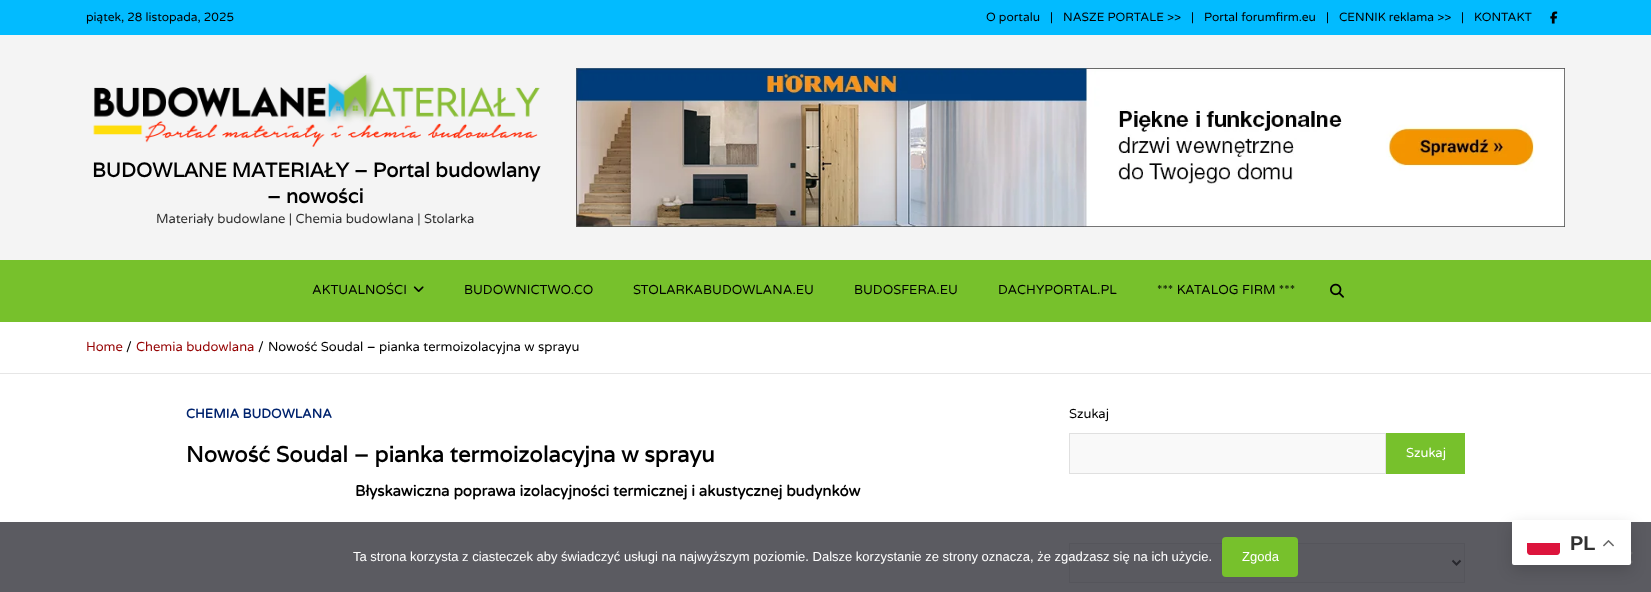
<svg xmlns="http://www.w3.org/2000/svg" width="1651" height="592" viewBox="0 0 1651 592">
  <rect width="100%" height="100%" fill="rgb(255,255,255)"/>
  <rect x="0" y="0" width="1651" height="35" fill="rgb(2,187,255)"/>
  <g font-family="Varela Round" font-size="12" fill="rgb(0,0,0)">
    <text x="86" y="21">piątek, 28 listopada, 2025</text>
    <text x="986" y="21">O portalu</text>
    <text x="1050" y="21">|</text>
    <text x="1063" y="21">NASZE PORTALE &gt;&gt;</text>
    <text x="1191" y="21">|</text>
    <text x="1204" y="21">Portal forumfirm.eu</text>
    <text x="1326" y="21">|</text>
    <text x="1339" y="21">CENNIK reklama &gt;&gt;</text>
    <text x="1461" y="21">|</text>
    <text x="1474" y="21">KONTAKT</text>
  </g>
  <image x="1550" y="11" width="8" height="13" href="pic1.png"/>
  <rect x="0" y="35" width="1651" height="225" fill="rgb(244,244,244)"/>
  <image x="93" y="73" width="447" height="74" href="pic2.png"/>
  <g font-family="Varela" font-size="20" font-weight="bold" fill="rgb(0,0,0)">
    <text x="92" y="177">BUDOWLANE MATERIAŁY – Portal budowlany</text>
    <text x="267" y="203">– nowości</text>
  </g>
  <text x="156" y="223" font-family="Varela Round" font-size="13" fill="rgb(49,49,49)">Materiały budowlane | Chemia budowlana | Stolarka</text>
  <image x="576" y="68" width="989" height="159" href="pic3.png"/>
  <rect x="0" y="260" width="1651" height="62" fill="rgb(119,193,44)"/>
  <text x="312" y="294" font-family="Varela Round" font-size="13" fill="rgb(0,0,0)">AKTUALNOŚCI</text>
  <image x="413" y="286" width="11" height="6" href="pic4.png"/>
  <g font-family="Varela Round" font-size="13" fill="rgb(0,0,0)">
    <text x="464" y="294">BUDOWNICTWO.CO</text>
    <text x="633" y="294">STOLARKABUDOWLANA.EU</text>
    <text x="854" y="294">BUDOSFERA.EU</text>
    <text x="998" y="294">DACHYPORTAL.PL</text>
    <text x="1157" y="294">*** KATALOG FIRM ***</text>
  </g>
  <image x="1330" y="283" width="14" height="15" href="pic5.png"/>
  <rect x="0" y="373" width="1651" height="1" fill="rgb(230,230,230)"/>
  <text x="86" y="351" font-family="Varela Round" font-size="13" fill="rgb(149,2,2)">Home</text>
  <text x="126" y="351" font-family="Varela Round" font-size="13" fill="rgb(0,0,0)">/</text>
  <text x="136" y="351" font-family="Varela Round" font-size="13" fill="rgb(149,2,2)">Chemia budowlana</text>
  <g font-family="Varela Round" font-size="13" fill="rgb(0,0,0)">
    <text x="258" y="351">/</text>
    <text x="268" y="351">Nowość Soudal – pianka termoizolacyjna w sprayu</text>
  </g>
  <text x="186" y="418" font-family="Varela Round" font-size="13" font-weight="bold" fill="rgb(0,35,110)">CHEMIA BUDOWLANA</text>
  <text x="186" y="462" font-family="Varela" font-size="22" font-weight="bold" fill="rgb(0,0,0)">Nowość Soudal – pianka termoizolacyjna w sprayu</text>
  <text x="355" y="496" font-family="Varela Round" font-size="15" font-weight="bold" fill="rgb(0,0,0)">Błyskawiczna poprawa izolacyjności termicznej i akustycznej budynków</text>
  <text x="1069" y="418" font-family="Varela Round" font-size="13" fill="rgb(0,0,0)">Szukaj</text>
  <rect x="1069.5" y="433.5" width="316" height="40" fill="rgb(249,249,249)" stroke="rgb(224,224,224)"/>
  <rect x="1386" y="433" width="79" height="41" fill="rgb(119,193,44)"/>
  <text x="1406" y="457" font-family="Varela Round" font-size="13" fill="rgb(255,255,255)">Szukaj</text>
  <rect x="1069.5" y="543.5" width="395" height="39" fill="rgb(249,249,249)" stroke="rgb(224,224,224)"/>
  <path d="M1452.5 560.5L1456.5 564.5L1460.5 560.5" fill="none" stroke="rgb(0,0,0)" stroke-width="2"/>
  <rect x="0" y="522" width="1651" height="70" fill="rgba(50,50,58,0.8)"/>
  <path d="M1631.5 551.5L1633 553L1622.5 563.5L1621 562Z" fill="rgb(110,110,113)"/>
  <path d="M1621 553L1622.5 551.5L1633 562L1631.5 563.5Z" fill="rgb(110,110,113)"/>
  <rect x="1512" y="525" width="119" height="45" rx="2" fill="rgba(0,0,0,0.15)" filter="blur(7.5px)"/>
  <rect x="1512" y="520" width="119" height="45" rx="2" fill="rgb(255,255,255)"/>
  <path d="M1527 543H1560V552C1560 553.5 1558.5 555 1557 555H1530C1528.5 555 1527 553.5 1527 552Z" fill="rgb(220,20,60)"/>
  <text x="1570" y="550" font-family="Liberation Sans" font-size="20" font-weight="bold" fill="rgb(49,49,49)">PL</text>
  <image x="1603" y="540" width="11" height="7" href="pic6.png"/>
  <text x="353" y="561" font-family="Liberation Sans" font-size="13" fill="rgb(255,255,255)">Ta strona korzysta z ciasteczek aby świadczyć usługi na najwyższym poziomie. Dalsze korzystanie ze strony oznacza, że zgadzasz się na ich użycie.</text>
  <rect x="1222" y="537" width="76" height="40" rx="4" fill="rgb(119,193,44)"/>
  <text x="1242" y="561" font-family="Liberation Sans" font-size="13" fill="rgb(255,255,255)">Zgoda</text>
</svg>
